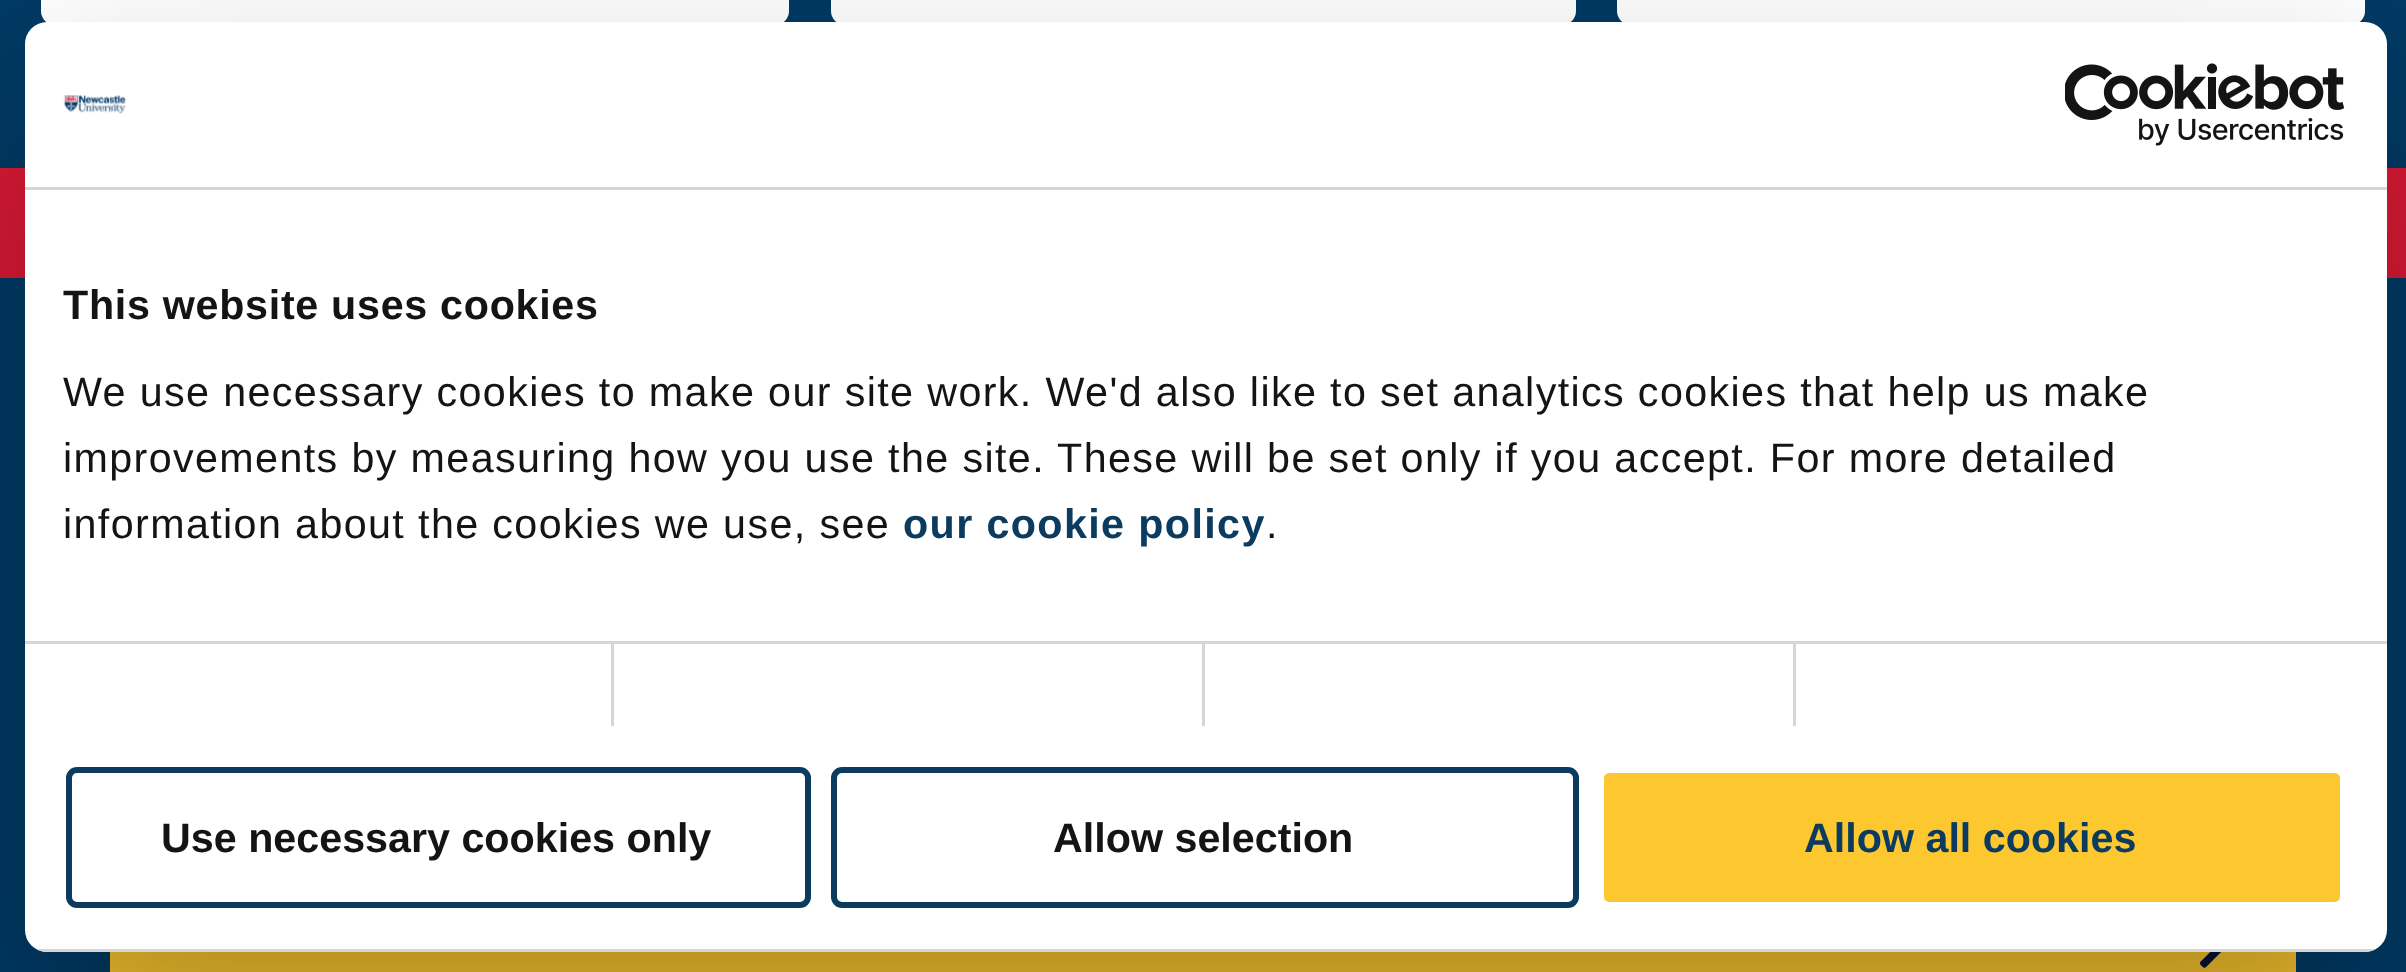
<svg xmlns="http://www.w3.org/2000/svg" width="2406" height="972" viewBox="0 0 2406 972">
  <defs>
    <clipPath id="clip1"><path d="M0 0H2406V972H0ZM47 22H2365C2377 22 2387 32 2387 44V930C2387 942 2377 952 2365 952H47C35 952 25 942 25 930V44C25 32 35 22 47 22Z" clip-rule="evenodd"/></clipPath>
    <clipPath id="clip2"><rect x="25" y="22" width="2362" height="930" rx="22"/></clipPath>
  </defs>
  <rect width="100%" height="100%" fill="rgb(0,58,101)"/>
  <rect x="42.5" y="-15.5" width="745" height="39" rx="12.5" fill="rgb(255,255,255)" stroke="rgb(255,255,255)" stroke-width="3"/>
  <rect x="832.5" y="-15.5" width="742" height="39" rx="12.5" fill="rgb(255,255,255)" stroke="rgb(255,255,255)" stroke-width="3"/>
  <rect x="1618.5" y="-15.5" width="745" height="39" rx="12.5" fill="rgb(255,255,255)" stroke="rgb(255,255,255)" stroke-width="3"/>
  <rect x="0" y="168" width="2406" height="110" fill="rgb(218,26,53)"/>
  <rect x="113" y="952" width="2180" height="20" fill="rgb(253,200,47)"/>
  <rect x="111.5" y="889.5" width="2183" height="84" fill="none" stroke="rgb(253,200,47)" stroke-width="3"/>
  <image x="2199" y="952" width="22" height="16" href="pic1.png"/>
  <g clip-path="url(#clip1)">
    <rect x="25" y="110" width="2362" height="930" rx="22" fill="rgba(0,0,0,0.3)" filter="blur(93.5px)"/>
  </g>
  <rect x="25" y="22" width="2362" height="930" rx="22" fill="rgb(255,255,255)"/>
  <rect x="25" y="187" width="2362" height="3" fill="rgb(214,214,214)"/>
  <image x="63" y="95" width="63" height="19" href="pic2.png"/>
  <image x="2065" y="63" width="280" height="83" href="pic3.png"/>
  <rect x="25" y="641" width="2362" height="3" fill="rgb(214,214,214)"/>
  <text x="63" y="319" font-family="Liberation Sans" font-size="41.25" font-weight="bold" letter-spacing="0.7" fill="rgb(20,20,20)">This website uses cookies</text>
  <g font-family="Liberation Sans" font-size="41.25" letter-spacing="1.38" fill="rgb(20,20,20)">
    <text>
      <tspan x="63" y="406">We use necessary cookies to make our site work. We'd also like to set analytics cookies that help us make</tspan>
      <tspan x="63" y="472">improvements by measuring how you use the site. These will be set only if you accept. For more detailed</tspan>
      <tspan x="63" y="538">information about the cookies we use, see</tspan>
    </text>
  </g>
  <text x="903" y="538" font-family="Liberation Sans" font-size="41.25" font-weight="bold" letter-spacing="1.38" fill="rgb(11,60,96)">our cookie policy</text>
  <text x="1266" y="538" font-family="Liberation Sans" font-size="41.25" letter-spacing="1.38" fill="rgb(20,20,20)">.</text>
  <rect x="611" y="644" width="3" height="82" fill="rgb(214,214,214)"/>
  <rect x="1202" y="644" width="3" height="82" fill="rgb(214,214,214)"/>
  <rect x="1793" y="644" width="3" height="82" fill="rgb(214,214,214)"/>
  <g clip-path="url(#clip2)">
    <rect x="36" y="949" width="2340" height="3" fill="rgb(214,214,214)"/>
  </g>
  <rect x="69" y="770" width="739" height="135" rx="8" fill="none" stroke="rgb(11,60,96)" stroke-width="6"/>
  <text x="161" y="852" font-family="Liberation Sans" font-size="41.25" font-weight="bold" fill="rgb(20,20,20)">Use necessary cookies only</text>
  <rect x="834" y="770" width="742" height="135" rx="8" fill="none" stroke="rgb(11,60,96)" stroke-width="6"/>
  <text x="1053" y="852" font-family="Liberation Sans" font-size="41.25" font-weight="bold" fill="rgb(20,20,20)">Allow selection</text>
  <rect x="1601" y="770" width="742" height="135" rx="8" fill="rgb(253,200,47)" stroke="rgb(255,255,255)" stroke-width="6"/>
  <text x="1804" y="852" font-family="Liberation Sans" font-size="41.25" font-weight="bold" fill="rgb(11,60,96)">Allow all cookies</text>
</svg>
